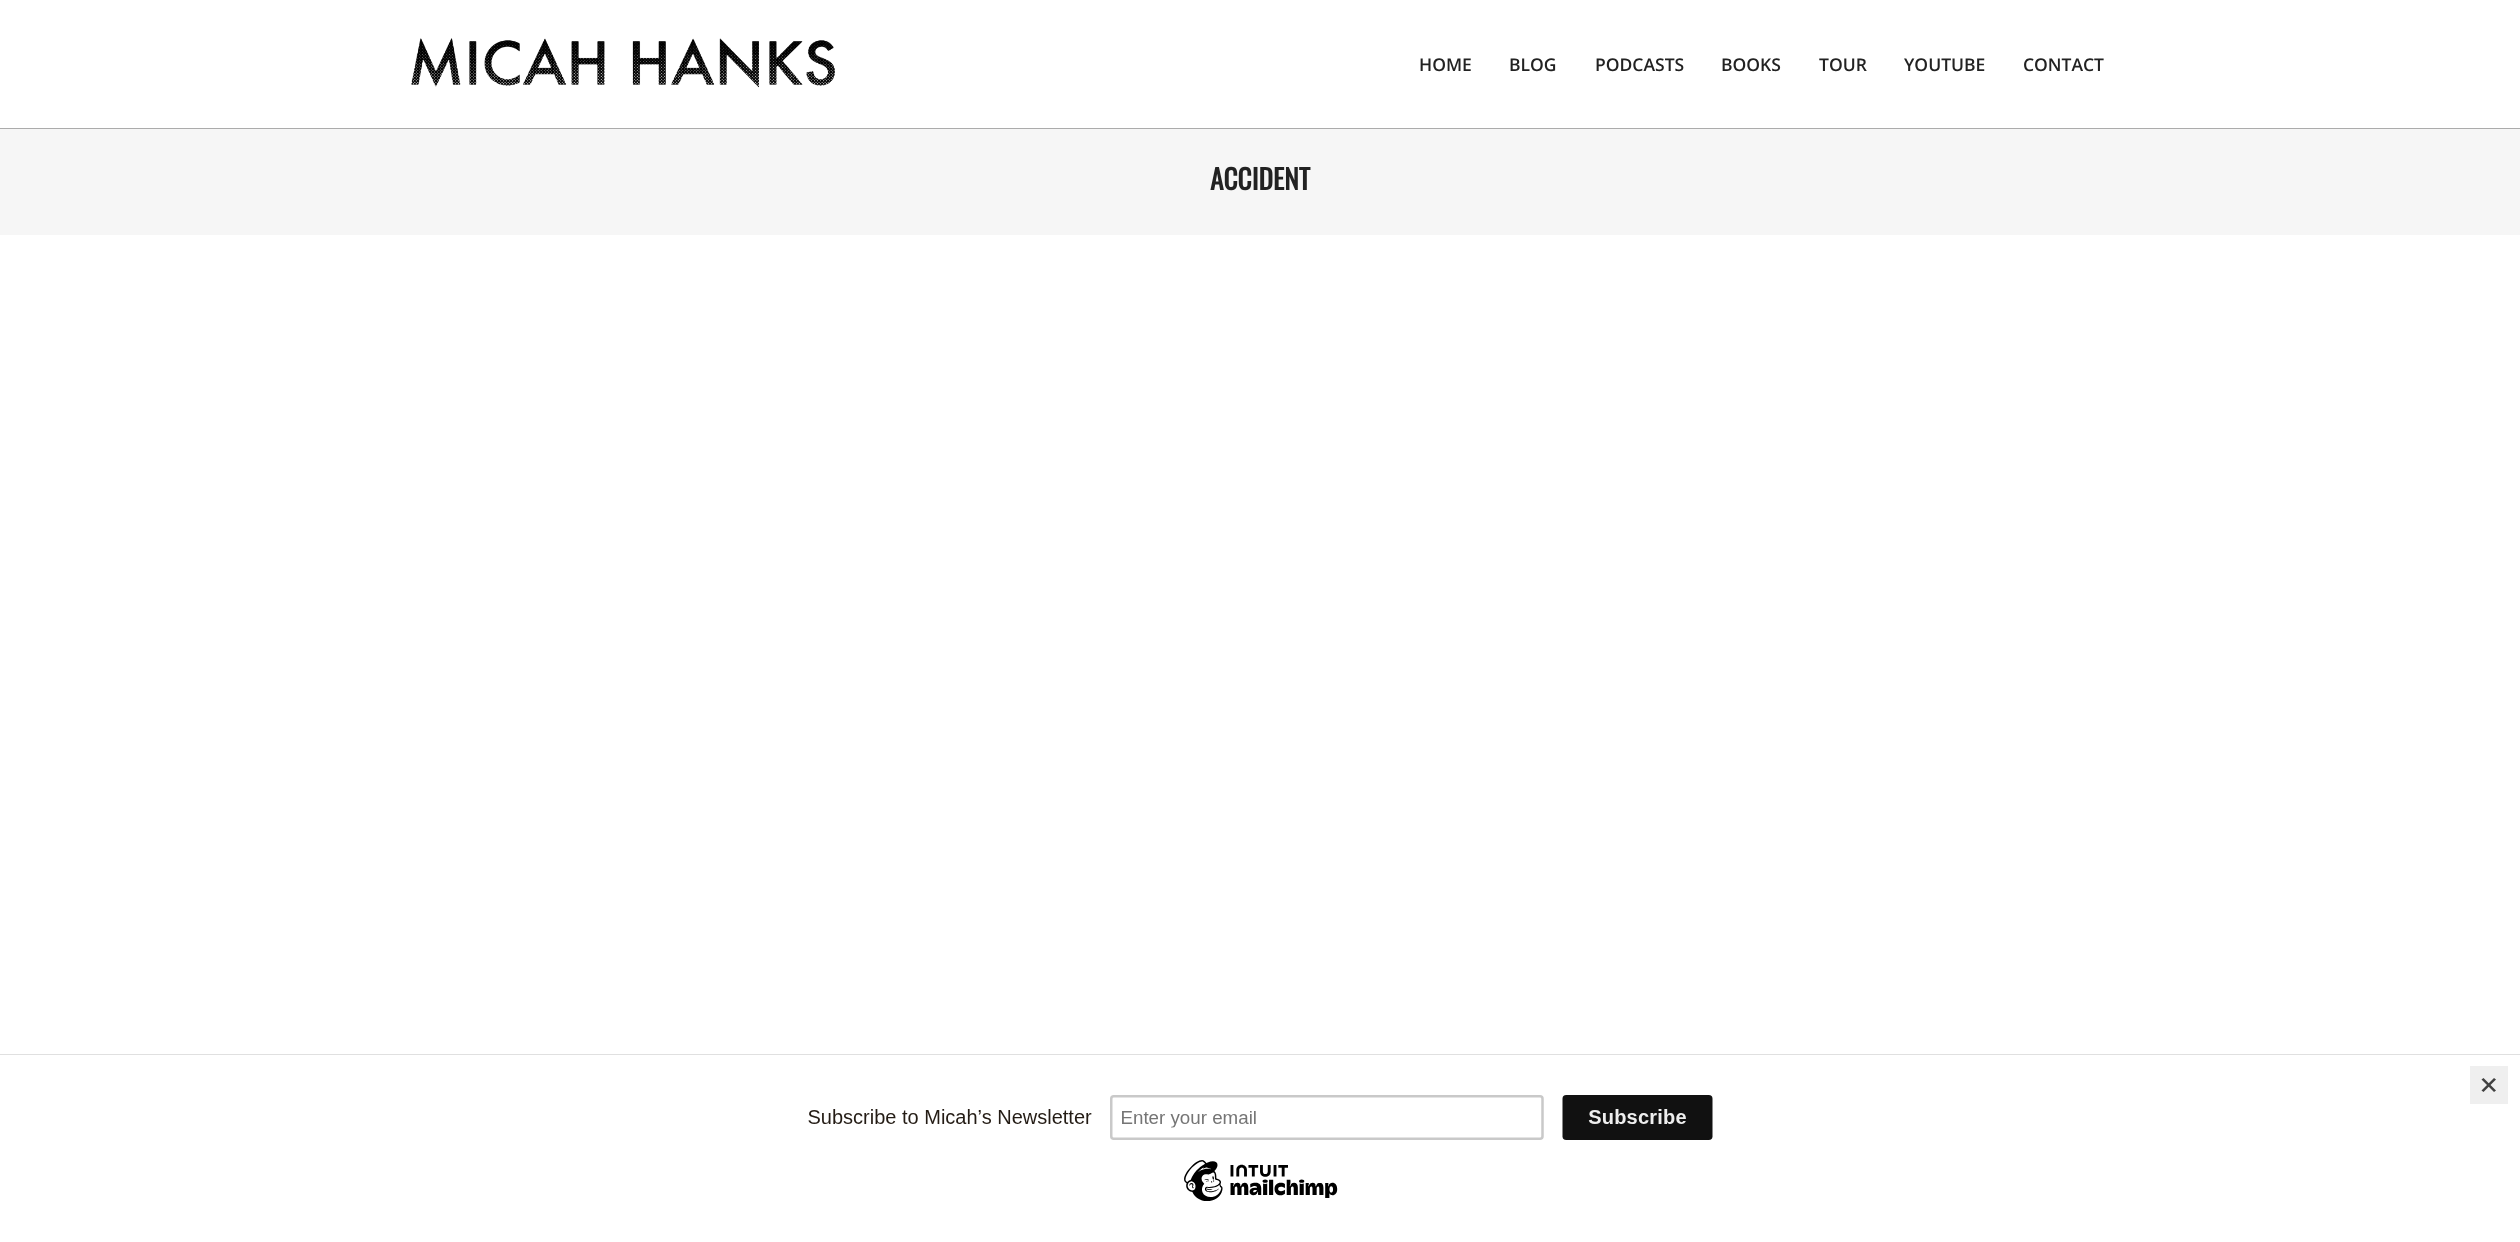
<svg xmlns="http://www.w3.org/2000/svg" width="2520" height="1242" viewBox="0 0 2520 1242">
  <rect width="100%" height="100%" fill="rgb(255,255,255)"/>
  <rect x="0" y="128" width="2520" height="1" fill="rgb(171,171,171)"/>
  <image x="411" y="38" width="424" height="50" href="pic1.png"/>
  <g font-family="Open Sans" font-size="17.5" font-weight="600" fill="rgb(34,34,34)">
    <text x="1419" y="71">HOME</text>
    <text x="1509" y="71">BLOG</text>
    <text x="1595" y="71">PODCASTS</text>
    <text x="1721" y="71">BOOKS</text>
    <text x="1819" y="71">TOUR</text>
    <text x="1904" y="71">YOUTUBE</text>
    <text x="2023" y="71">CONTACT</text>
  </g>
  <rect x="0" y="129" width="2520" height="106" fill="rgb(246,246,246)"/>
  <text x="1210" y="190" font-family="Oswald" font-size="27.5" font-weight="bold" fill="rgb(34,34,34)">ACCIDENT</text>
  <rect x="0" y="1054" width="2520" height="1" fill="rgb(224,224,224)"/>
  <image x="808" y="1095" width="905" height="106" href="pic2.png"/>
  <rect x="2470" y="1066" width="38" height="38" fill="rgb(239,239,239)"/>
  <path d="M2494 1078L2496 1079.5L2483.5 1092L2481.5 1090.5Z" fill="rgb(65,65,65)"/>
  <path d="M2481.5 1079.5L2483.5 1078L2496 1090.5L2494 1092Z" fill="rgb(65,65,65)"/>
</svg>
